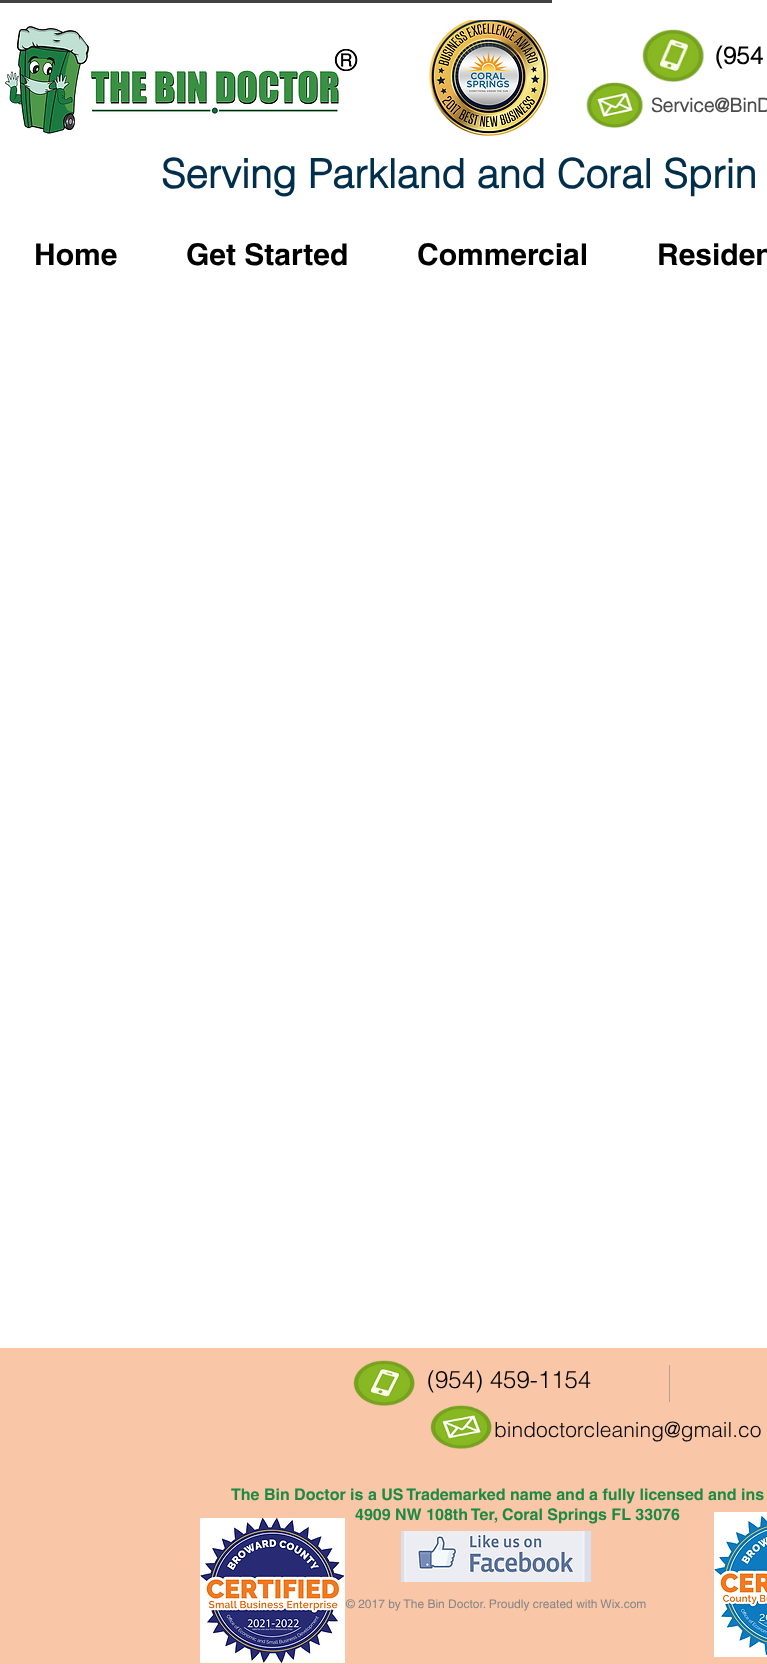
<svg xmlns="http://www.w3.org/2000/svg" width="767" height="1664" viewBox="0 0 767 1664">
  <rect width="100%" height="100%" fill="rgb(249,199,167)"/>
  <rect x="0" y="0" width="767" height="1348" fill="rgb(255,255,255)"/>
  <rect x="0" y="0" width="552" height="3" fill="rgb(66,66,66)"/>
  <image x="5" y="26" width="336" height="108" href="pic1.png"/>
  <image x="334" y="49" width="24" height="22" href="pic2.png"/>
  <image x="429" y="20" width="120" height="116" href="pic3.png"/>
  <image x="642" y="29" width="62" height="53" href="pic4.png"/>
  <text x="715" y="64" font-family="'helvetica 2'" font-size="24" font-weight="bold" fill="rgb(0,0,0)">(954</text>
  <image x="586" y="82" width="57" height="46" href="pic5.png"/>
  <text x="651" y="112" font-family="'helvetica 2'" font-size="19" font-weight="bold" fill="rgb(74,74,74)">Service@BinD</text>
  <text x="161" y="188" font-family="'helvetica 2'" font-size="40" font-weight="bold" fill="rgb(0,46,75)">Serving Parkland and Coral Sprin</text>
  <g font-family="helvetica" font-size="30" font-weight="bold" fill="rgb(0,0,0)">
    <text x="34" y="265">Home</text>
    <text x="186" y="265">Get Started</text>
    <text x="417" y="265">Commercial</text>
    <text x="657" y="265">Residen</text>
  </g>
  <image x="353" y="1360" width="62" height="46" href="pic6.png"/>
  <text x="427" y="1388" font-family="helvetica" font-size="24" font-weight="300" fill="rgb(0,0,0)">(954) 459-1154</text>
  <rect x="669" y="1365" width="1" height="37" fill="rgb(180,160,147)"/>
  <image x="430" y="1405" width="62" height="44" href="pic7.png"/>
  <text x="494" y="1437" font-family="helvetica" font-size="21" font-weight="300" fill="rgb(0,0,0)">bindoctorcleaning@gmail.co</text>
  <g font-family="helvetica" font-size="16" font-weight="bold" fill="rgb(28,138,67)">
    <text x="231" y="1500">The Bin Doctor is a US Trademarked name and a fully licensed and ins</text>
    <text x="355" y="1520">4909 NW 108th Ter, Coral Springs FL 33076</text>
  </g>
  <image x="200" y="1518" width="145" height="145" href="pic8.png"/>
  <image x="401" y="1531" width="190" height="51" href="pic9.png"/>
  <image x="714" y="1512" width="53" height="145" href="pic10.png"/>
  <text x="346" y="1608" font-family="helvetica" font-size="12" fill="rgb(134,134,134)">© 2017 by The Bin Doctor. Proudly created with Wix.com</text>
</svg>
